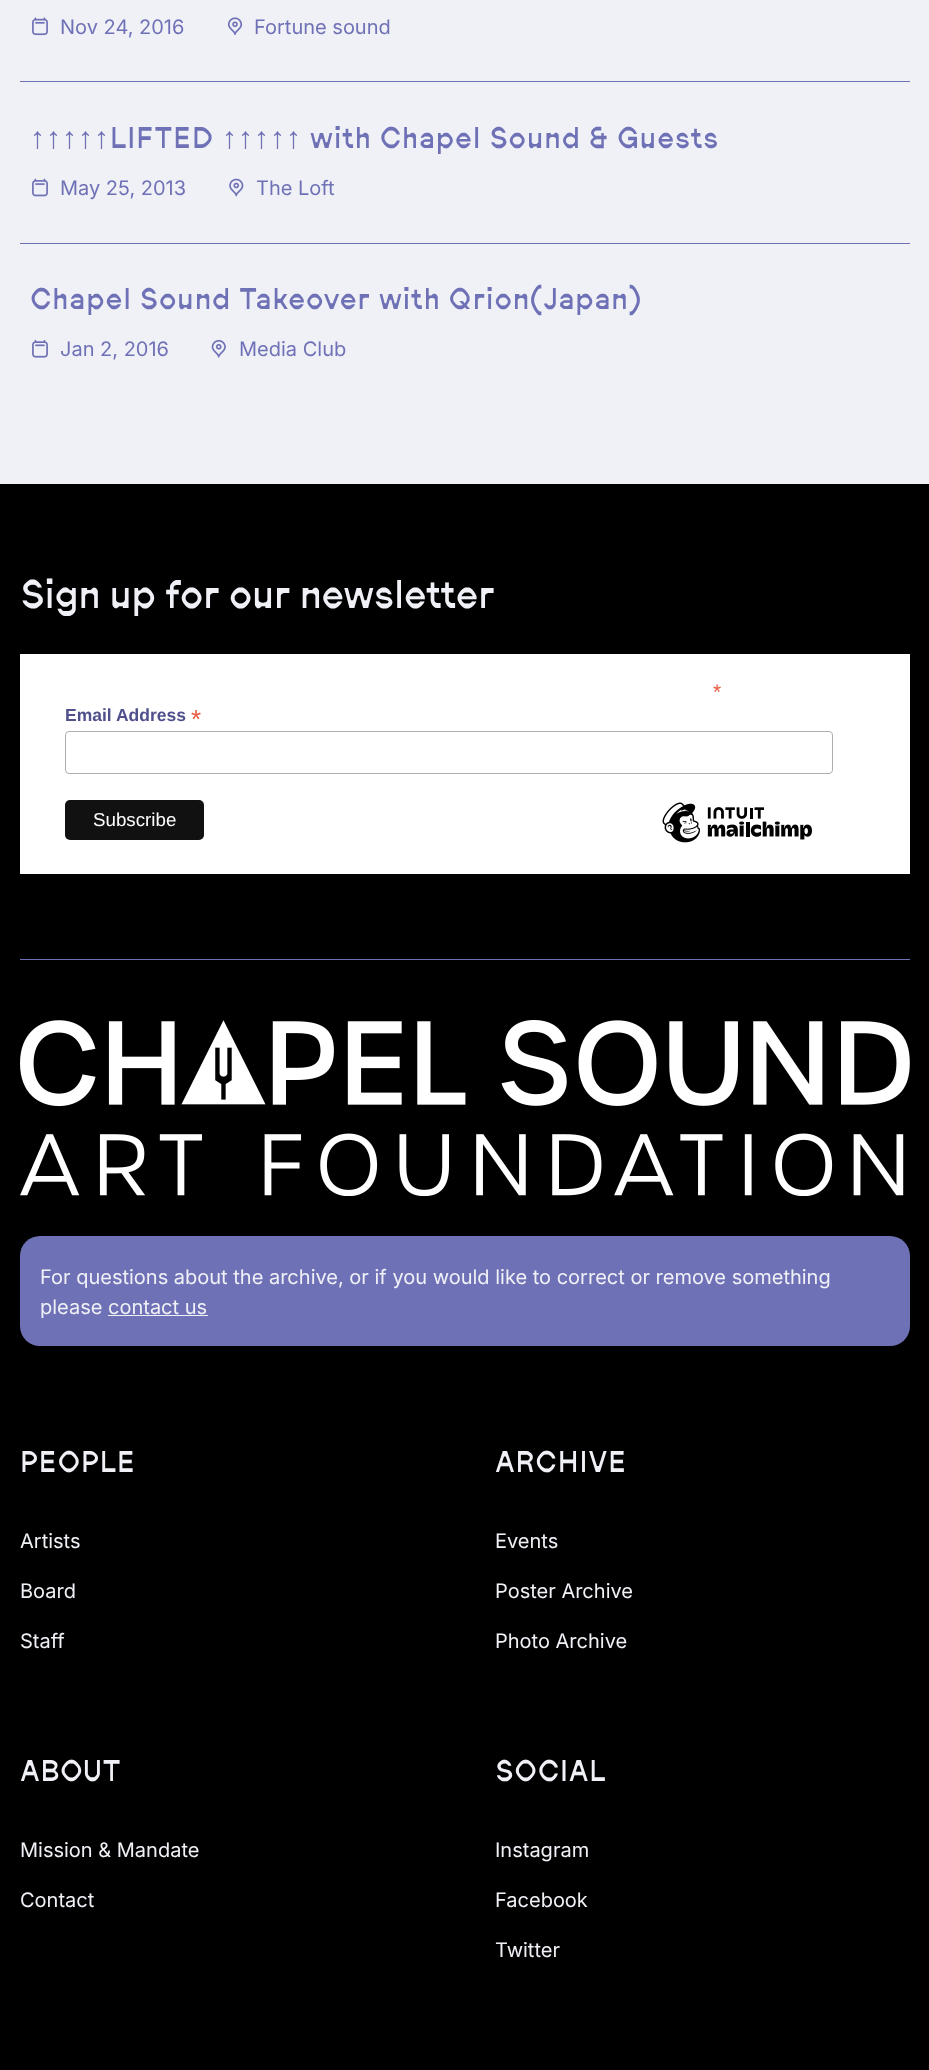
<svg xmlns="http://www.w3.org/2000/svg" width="929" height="2070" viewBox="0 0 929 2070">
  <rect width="100%" height="100%" fill="rgb(240,241,247)"/>
  <image x="32" y="17" width="16" height="19" href="pic1.png"/>
  <text x="60" y="34" font-family="Inter" font-size="20" fill="rgb(111,113,182)">Nov 24, 2016</text>
  <image x="227" y="17" width="16" height="18" href="pic2.png"/>
  <text x="254" y="34" font-family="Inter" font-size="20" fill="rgb(111,113,182)">Fortune sound</text>
  <rect x="20" y="81" width="890" height="1" fill="rgb(111,113,182)"/>
  <text x="30" y="148" font-family="Liberation Sans" font-size="30" letter-spacing="1" fill="rgb(111,113,182)">↑↑↑↑↑</text>
  <text x="110" y="148" font-family="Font" font-size="30" letter-spacing="1" fill="rgb(111,113,182)">LIFTED</text>
  <text x="222" y="148" font-family="Liberation Sans" font-size="30" letter-spacing="1" fill="rgb(111,113,182)">↑↑↑↑↑</text>
  <text x="310" y="148" font-family="Font" font-size="30" letter-spacing="1" fill="rgb(111,113,182)">with Chapel Sound &amp; Guests</text>
  <image x="32" y="178" width="16" height="19" href="pic3.png"/>
  <text x="60" y="195" font-family="Inter" font-size="20" fill="rgb(111,113,182)">May 25, 2013</text>
  <image x="229" y="178" width="15" height="19" href="pic4.png"/>
  <text x="256" y="195" font-family="Inter" font-size="20" fill="rgb(111,113,182)">The Loft</text>
  <rect x="20" y="243" width="890" height="1" fill="rgb(111,113,182)"/>
  <text x="30" y="309" font-family="Font" font-size="30" letter-spacing="1" fill="rgb(111,113,182)">Chapel Sound Takeover with Qrion(Japan)</text>
  <image x="32" y="340" width="16" height="18" href="pic5.png"/>
  <text x="60" y="356" font-family="Inter" font-size="20" fill="rgb(111,113,182)">Jan 2, 2016</text>
  <image x="211" y="339" width="15" height="19" href="pic6.png"/>
  <text x="239" y="356" font-family="Inter" font-size="20" fill="rgb(111,113,182)">Media Club</text>
  <rect x="0" y="484" width="929" height="1586" fill="rgb(0,0,0)"/>
  <text x="20" y="608" font-family="Font" font-size="40" fill="rgb(240,241,247)">Sign up for our newsletter</text>
  <rect x="20" y="654" width="890" height="220" fill="rgb(255,255,255)"/>
  <text x="713" y="699" font-family="Liberation Sans" font-size="21" fill="rgb(232,92,65)">*</text>
  <text x="65" y="721" font-family="Liberation Sans" font-size="17.5" font-weight="bold" fill="rgb(80,81,140)">Email Address</text>
  <text x="191" y="728" font-family="Liberation Sans" font-size="26" fill="rgb(232,92,65)">*</text>
  <rect x="65.5" y="731.5" width="767" height="42" rx="3.5" fill="none" stroke="rgb(171,176,178)"/>
  <rect x="65" y="800" width="139" height="40" rx="5" fill="rgb(17,17,17)"/>
  <text x="93" y="826" font-family="Liberation Sans" font-size="18.75" fill="rgb(255,255,255)">Subscribe</text>
  <image x="662" y="802" width="150" height="41" href="pic7.png"/>
  <rect x="20" y="959" width="890" height="1" fill="rgb(111,113,182)"/>
  <image x="20" y="1020" width="890" height="176" href="pic8.png"/>
  <rect x="20" y="1236" width="890" height="110" rx="20" fill="rgb(111,113,182)"/>
  <g font-family="Inter" font-size="20" fill="rgb(240,241,247)">
    <text>
      <tspan x="40" y="1284">For questions about the archive, or if you would like to correct or remove something</tspan>
      <tspan x="40" y="1314">please contact us</tspan>
    </text>
  </g>
  <rect x="108" y="1315" width="100" height="1" fill="rgb(240,241,247)"/>
  <text x="20" y="1472" font-family="Font" font-size="30" letter-spacing="1" fill="rgb(240,241,247)">PEOPLE</text>
  <g font-family="Inter" font-size="20" fill="rgb(240,241,247)">
    <text x="20" y="1548">Artists</text>
    <text x="20" y="1598">Board</text>
    <text x="20" y="1648">Staff</text>
  </g>
  <text x="495" y="1472" font-family="Font" font-size="30" letter-spacing="1" fill="rgb(240,241,247)">ARCHIVE</text>
  <g font-family="Inter" font-size="20" fill="rgb(240,241,247)">
    <text x="495" y="1548">Events</text>
    <text x="495" y="1598">Poster Archive</text>
    <text x="495" y="1648">Photo Archive</text>
  </g>
  <text x="20" y="1781" font-family="Font" font-size="30" letter-spacing="1" fill="rgb(240,241,247)">ABOUT</text>
  <g font-family="Inter" font-size="20" fill="rgb(240,241,247)">
    <text x="20" y="1857">Mission &amp; Mandate</text>
    <text x="20" y="1907">Contact</text>
  </g>
  <text x="495" y="1781" font-family="Font" font-size="30" letter-spacing="1" fill="rgb(240,241,247)">SOCIAL</text>
  <g font-family="Inter" font-size="20" fill="rgb(240,241,247)">
    <text x="495" y="1857">Instagram</text>
    <text x="495" y="1907">Facebook</text>
    <text x="495" y="1957">Twitter</text>
  </g>
</svg>
